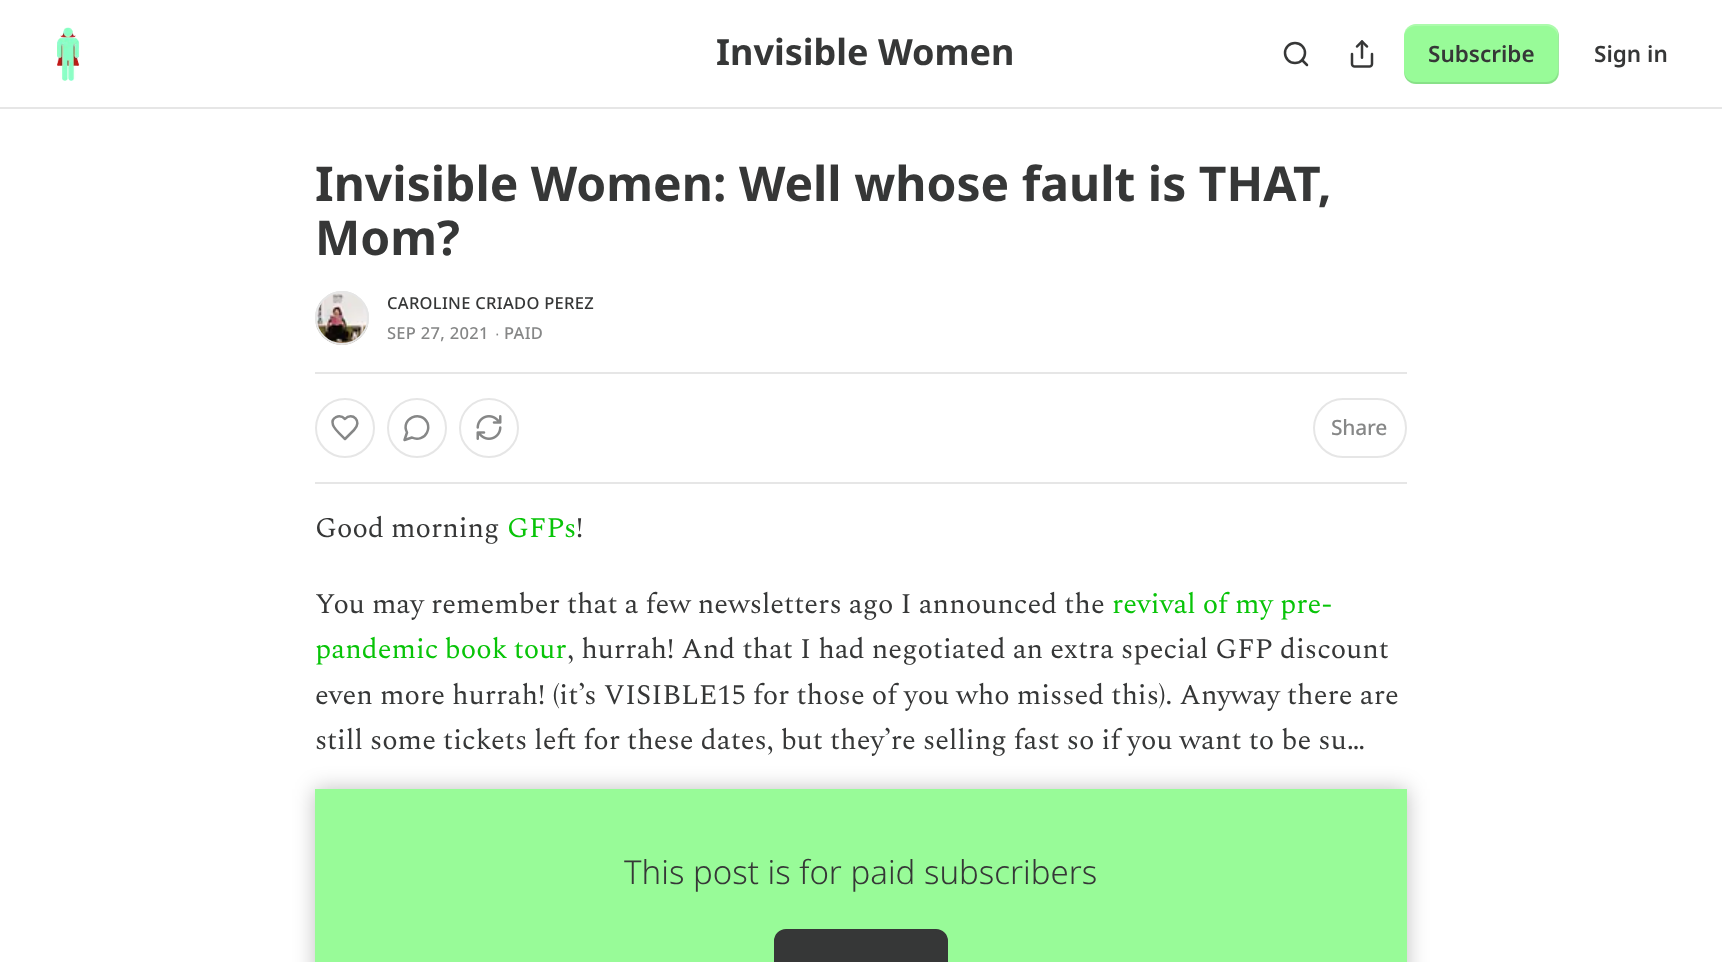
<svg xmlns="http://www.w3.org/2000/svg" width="1722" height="962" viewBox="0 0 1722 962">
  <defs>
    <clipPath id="clip1"><path d="M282 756H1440V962H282ZM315 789H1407V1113H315Z" clip-rule="evenodd"/></clipPath>
  </defs>
  <rect width="100%" height="100%" fill="rgb(255,255,255)"/>
  <rect x="0" y="107" width="1722" height="2" fill="rgb(230,230,230)"/>
  <image x="57" y="27" width="23" height="54" href="pic1.png"/>
  <text x="716" y="65" font-family="Noto Sans" font-size="36" font-weight="bold" fill="rgb(54,55,55)">Invisible Women</text>
  <circle cx="1295" cy="53" r="10" fill="none" stroke="rgb(54,55,55)" stroke-width="2.5"/>
  <path d="M1307 65L1302 60" fill="none" stroke="rgb(54,55,55)" stroke-width="2.5" stroke-linecap="round" stroke-linejoin="round"/>
  <image x="1350" y="40" width="24" height="28" href="pic2.png"/>
  <rect x="1404" y="24" width="155" height="60" rx="12" fill="rgb(152,251,152)"/>
  <path d="M1404 70V72C1404 79 1409 84 1416 84H1547C1554 84 1559 79 1559 72V36C1559 34 1558 31 1557 29L1558 34V70C1558 77 1553 82 1546 82H1416C1409 82 1404 77 1404 70Z" fill="rgba(0,0,0,0.1)"/>
  <path d="M1416 26H1546C1553 26 1558 31 1558 38V74L1557 79C1558 77 1559 74 1559 72V36C1559 29 1554 24 1547 24H1416C1409 24 1404 29 1404 36V38C1404 31 1409 26 1416 26Z" fill="rgba(255,255,255,0.2)"/>
  <g font-family="Noto Sans" font-size="22.5" font-weight="600" fill="rgb(54,55,55)">
    <text x="1428" y="62">Subscribe</text>
    <text x="1594" y="62">Sign in</text>
  </g>
  <g font-family="Noto Sans" font-size="48" font-weight="bold" fill="rgb(54,55,55)">
    <text>
      <tspan x="315" y="201">Invisible Women: Well whose fault is THAT,</tspan>
      <tspan x="315" y="255">Mom?</tspan>
    </text>
  </g>
  <circle cx="342" cy="318" r="26" fill="none" stroke="rgb(230,230,230)" stroke-width="2"/>
  <image x="315" y="291" width="54" height="54" href="pic3.png"/>
  <circle cx="342" cy="318" r="26" fill="none" stroke="rgb(230,230,230)" stroke-width="2"/>
  <text x="387" y="309" font-family="Noto Sans" font-size="16.5" font-weight="500" letter-spacing="0.3" fill="rgb(54,55,55)">CAROLINE CRIADO PEREZ</text>
  <text x="387" y="339" font-family="Noto Sans" font-size="16.5" font-weight="500" letter-spacing="0.3" fill="rgb(134,135,135)">SEP 27, 2021</text>
  <text x="495" y="339" font-family="Liberation Sans" font-size="16.5" letter-spacing="0.3" fill="rgb(134,135,135)">∙</text>
  <text x="504" y="339" font-family="Noto Sans" font-size="16.5" font-weight="500" letter-spacing="0.3" fill="rgb(134,135,135)">PAID</text>
  <rect x="315" y="372" width="1092" height="2" fill="rgb(230,230,230)"/>
  <rect x="315" y="482" width="1092" height="2" fill="rgb(230,230,230)"/>
  <circle cx="345" cy="428" r="29" fill="none" stroke="rgb(230,230,230)" stroke-width="2"/>
  <path d="M354 430C363 421 352 411.5 345 419C339.5 413.5 330.5 417.5 333 425C334 429 342 436 345 439Z" fill="none" stroke="rgb(134,135,135)" stroke-width="2.5" stroke-linecap="round" stroke-linejoin="round"/>
  <circle cx="417" cy="428" r="29" fill="none" stroke="rgb(230,230,230)" stroke-width="2"/>
  <path d="M412 437.5C417.5 440.5 424.5 438 427 432.5C428.5 429.5 428.5 426 427.5 423C421 409 400 419 407 432.5L404.5 440Z" fill="none" stroke="rgb(134,135,135)" stroke-width="2.5" stroke-linecap="round" stroke-linejoin="round"/>
  <circle cx="489" cy="428" r="29" fill="none" stroke="rgb(230,230,230)" stroke-width="2"/>
  <image x="476" y="415" width="26" height="25" href="pic4.png"/>
  <rect x="1314" y="399" width="92" height="58" rx="29" fill="none" stroke="rgb(230,230,230)" stroke-width="2"/>
  <text x="1331" y="435" font-family="Noto Sans" font-size="21" font-weight="500" letter-spacing="-0.25" fill="rgb(134,135,135)">Share</text>
  <text x="315" y="537" font-family="Spectral" font-size="28.5" fill="rgb(54,55,55)">Good morning</text>
  <text x="507" y="537" font-family="Spectral" font-size="28.5" fill="rgb(8,196,8)">GFPs</text>
  <g font-family="Spectral" font-size="28.5" fill="rgb(54,55,55)">
    <text x="576" y="537">!</text>
    <text x="315" y="613">You may remember that a few newsletters ago I announced the</text>
  </g>
  <g font-family="Spectral" font-size="28.5" fill="rgb(8,196,8)">
    <text x="1112" y="613">revival of my pre-</text>
    <text x="315" y="658" word-spacing="-1">pandemic book tour</text>
  </g>
  <g font-family="Spectral" font-size="28.5" fill="rgb(54,55,55)">
    <text x="567" y="658">, hurrah! And that I had negotiated an extra special GFP discount</text>
    <text>
      <tspan x="315" y="704">even more hurrah! (it’s VISIBLE15 for those of you who missed this). Anyway there are</tspan>
      <tspan x="315" y="749">still some tickets left for these dates, but they’re selling fast so if you want to be su…</tspan>
    </text>
  </g>
  <rect x="315" y="789" width="1092" height="173" fill="rgb(152,251,152)"/>
  <rect x="775" y="930" width="172" height="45" rx="11" fill="rgb(54,55,55)" stroke="rgb(54,55,55)" stroke-width="2"/>
  <g clip-path="url(#clip1)">
    <rect x="315" y="789" width="1092" height="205" fill="rgba(0,0,0,0.25)" filter="blur(10.5px)"/>
  </g>
  <text x="624" y="884" font-family="Noto Sans" font-size="33" font-weight="300" fill="rgb(54,55,55)">This post is for paid subscribers</text>
</svg>
